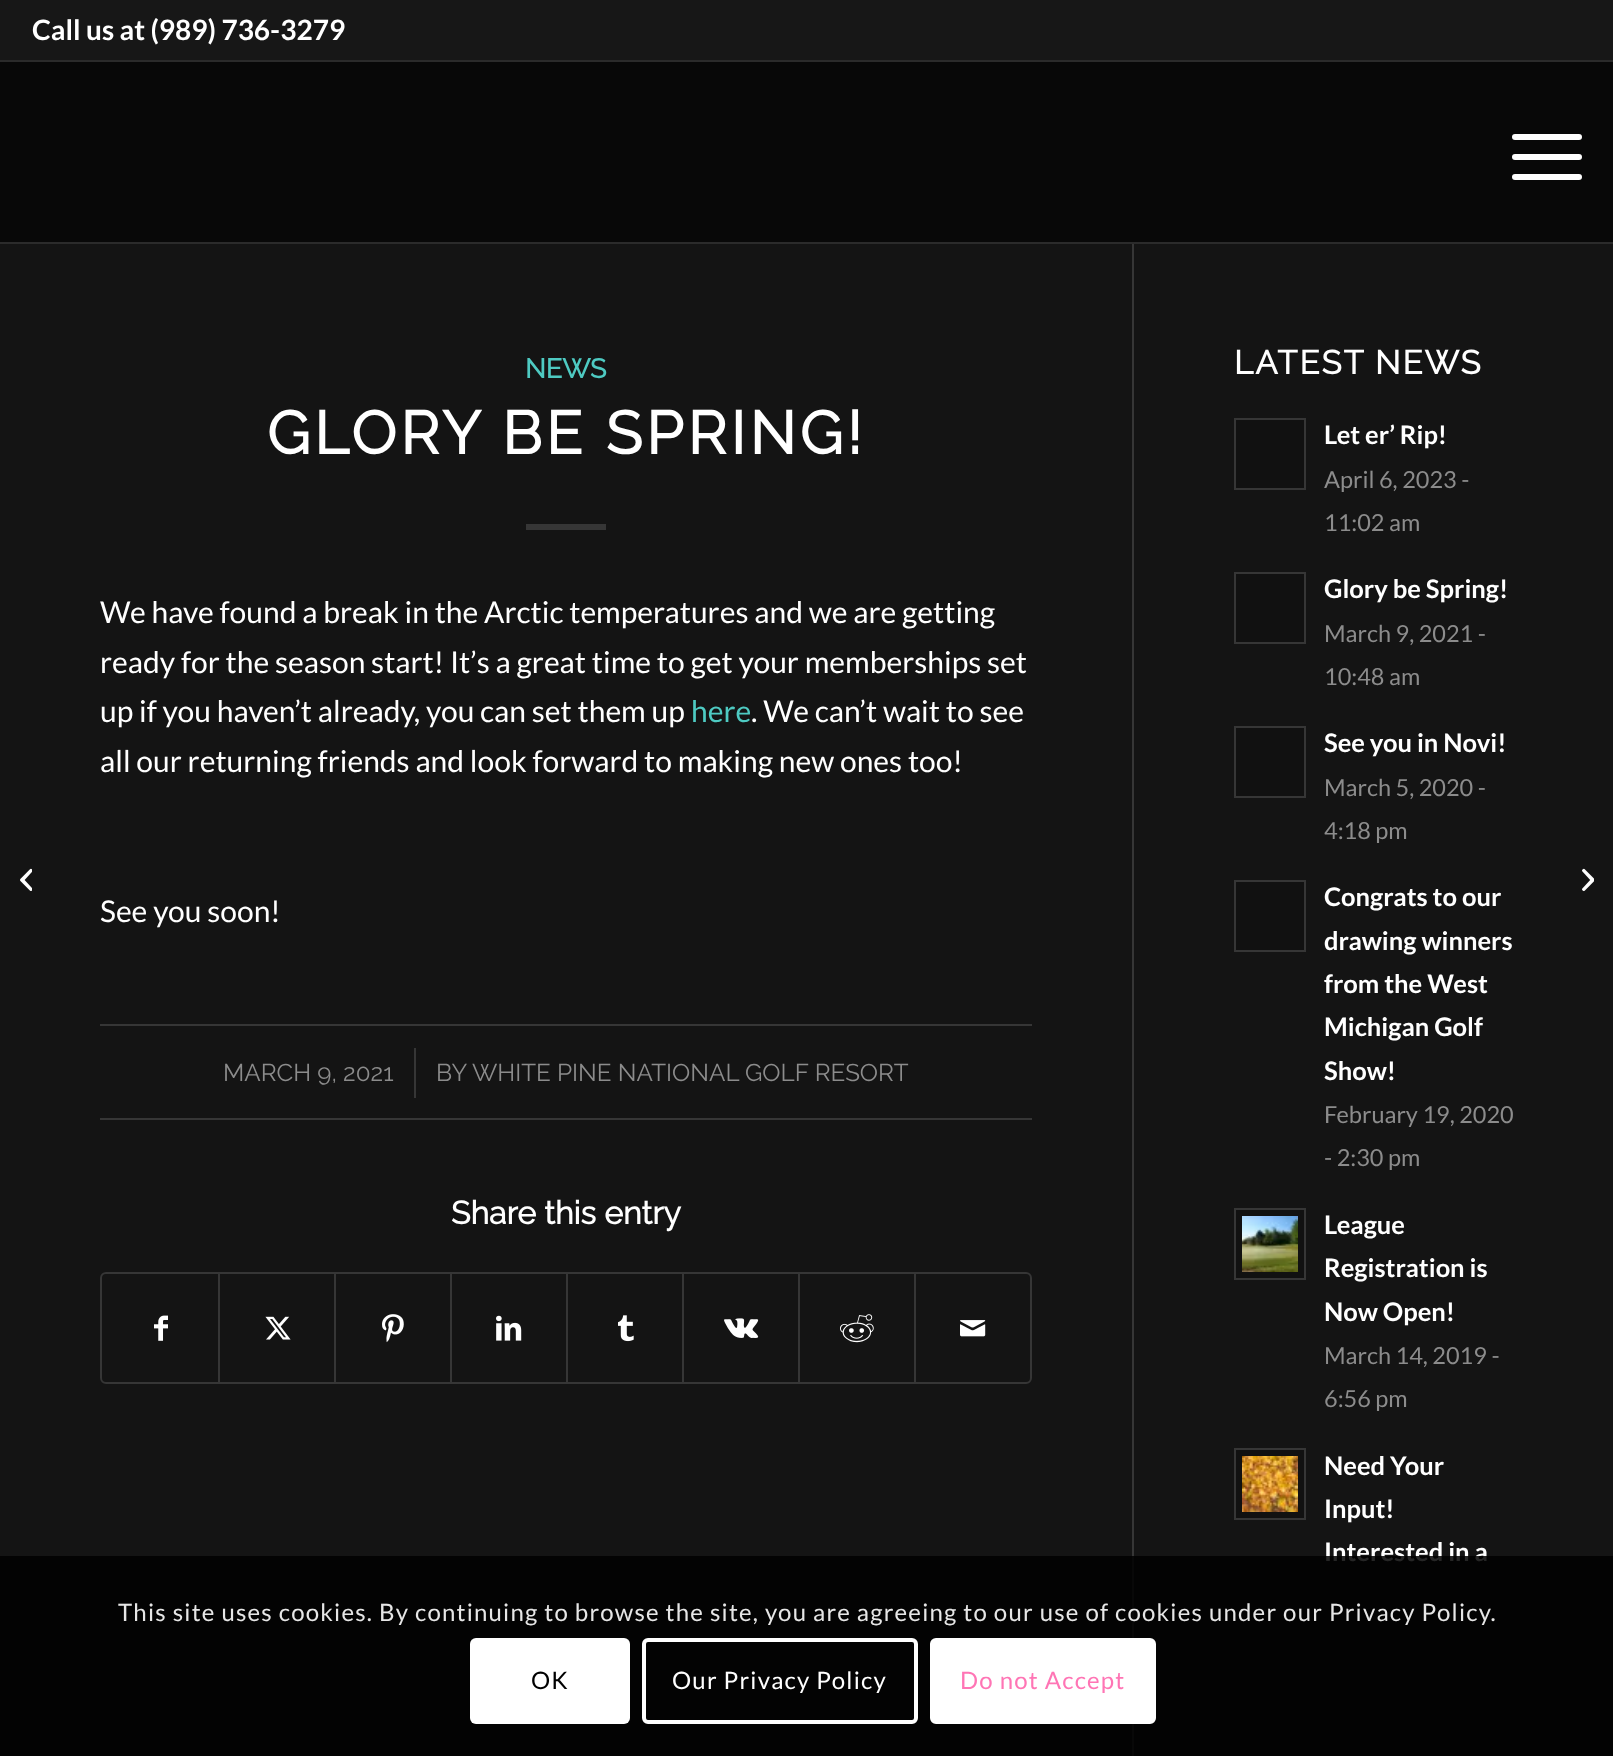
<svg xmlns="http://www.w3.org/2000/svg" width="1613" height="1756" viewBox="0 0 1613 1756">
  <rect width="100%" height="100%" fill="rgb(20,20,20)"/>
  <rect x="0" y="0" width="1613" height="60" fill="rgb(23,23,23)"/>
  <rect x="0" y="60" width="1613" height="2" fill="rgb(43,43,43)"/>
  <text x="32" y="40" font-family="Lato" font-size="28" font-weight="bold" fill="rgb(255,255,255)">Call us at (989) 736-3279</text>
  <rect x="0" y="62" width="1613" height="180" fill="rgb(8,8,8)"/>
  <rect x="0" y="242" width="1613" height="2" fill="rgb(43,43,43)"/>
  <rect x="1512" y="154" width="70" height="6" rx="3" fill="rgb(255,255,255)"/>
  <rect x="1512" y="134" width="70" height="6" rx="3" fill="rgb(255,255,255)"/>
  <rect x="1512" y="174" width="70" height="6" rx="3" fill="rgb(255,255,255)"/>
  <image x="20" y="868" width="12" height="23" href="pic1.png"/>
  <text x="525" y="378" font-family="Raleway" font-size="27" font-weight="bold" fill="rgb(78,202,194)">NEWS</text>
  <text x="267" y="454" font-family="Raleway" font-size="60" font-weight="bold" letter-spacing="4" fill="rgb(255,255,255)">GLORY BE SPRING!</text>
  <rect x="526" y="524" width="80" height="6" fill="rgb(54,54,54)"/>
  <g font-family="Lato" font-size="30" fill="rgb(255,255,255)">
    <text>
      <tspan x="100" y="623">We have found a break in the Arctic temperatures and we are getting</tspan>
      <tspan x="100" y="673">ready for the season start! It’s a great time to get your memberships set</tspan>
      <tspan x="100" y="722">up if you haven’t already, you can set them up</tspan>
    </text>
  </g>
  <text x="691" y="722" font-family="Lato" font-size="30" fill="rgb(78,202,194)">here</text>
  <g font-family="Lato" font-size="30" fill="rgb(255,255,255)">
    <text x="751" y="722">. We can’t wait to see</text>
    <text x="100" y="772">all our returning friends and look forward to making new ones too!</text>
    <text x="100" y="922">See you soon!</text>
  </g>
  <rect x="100" y="1024" width="932" height="2" fill="rgb(54,54,54)"/>
  <rect x="100" y="1118" width="932" height="2" fill="rgb(54,54,54)"/>
  <text x="223" y="1081" font-family="Raleway" font-size="24.25" font-weight="100" fill="rgb(140,140,140)">MARCH 9, 2021</text>
  <rect x="414" y="1048" width="2" height="50" fill="rgb(54,54,54)"/>
  <g font-family="Raleway" font-size="24.25" font-weight="100" fill="rgb(140,140,140)">
    <text x="436" y="1081">BY</text>
    <text x="472" y="1081">WHITE PINE NATIONAL GOLF RESORT</text>
  </g>
  <text x="451" y="1224" font-family="Raleway" font-size="32" font-weight="bold" fill="rgb(255,255,255)">Share this entry</text>
  <rect x="101" y="1273" width="930" height="110" rx="5" fill="none" stroke="rgb(54,54,54)" stroke-width="2"/>
  <image x="154" y="1315" width="14" height="26" href="pic2.png"/>
  <rect x="218" y="1274" width="2" height="108" fill="rgb(54,54,54)"/>
  <image x="265" y="1316" width="26" height="24" href="pic3.png"/>
  <rect x="334" y="1274" width="2" height="108" fill="rgb(54,54,54)"/>
  <image x="382" y="1314" width="22" height="29" href="pic4.png"/>
  <rect x="450" y="1274" width="2" height="108" fill="rgb(54,54,54)"/>
  <image x="496" y="1315" width="26" height="26" href="pic5.png"/>
  <rect x="566" y="1274" width="2" height="108" fill="rgb(54,54,54)"/>
  <image x="618" y="1315" width="16" height="27" href="pic6.png"/>
  <rect x="682" y="1274" width="2" height="108" fill="rgb(54,54,54)"/>
  <image x="724" y="1318" width="35" height="20" href="pic7.png"/>
  <rect x="798" y="1274" width="2" height="108" fill="rgb(54,54,54)"/>
  <image x="840" y="1314" width="34" height="29" href="pic8.png"/>
  <rect x="914" y="1274" width="2" height="108" fill="rgb(54,54,54)"/>
  <image x="960" y="1320" width="26" height="17" href="pic9.png"/>
  <rect x="1132" y="244" width="2" height="1512" fill="rgb(54,54,54)"/>
  <text x="1234" y="374" font-family="Raleway" font-size="33" font-weight="bold" letter-spacing="2" fill="rgb(255,255,255)">LATEST NEWS</text>
  <rect x="1235" y="419" width="70" height="70" fill="rgb(17,17,17)" stroke="rgb(54,54,54)" stroke-width="2"/>
  <text x="1324" y="444" font-family="Lato" font-size="25.5" font-weight="bold" fill="rgb(255,255,255)">Let er’ Rip!</text>
  <g font-family="Lato" font-size="23.5" fill="rgb(140,140,140)">
    <text>
      <tspan x="1324" y="488">April 6, 2023 -</tspan>
      <tspan x="1324" y="531">11:02 am</tspan>
    </text>
  </g>
  <rect x="1235" y="573" width="70" height="70" fill="rgb(17,17,17)" stroke="rgb(54,54,54)" stroke-width="2"/>
  <text x="1324" y="598" font-family="Lato" font-size="25.5" font-weight="bold" fill="rgb(255,255,255)">Glory be Spring!</text>
  <g font-family="Lato" font-size="23.5" fill="rgb(140,140,140)">
    <text>
      <tspan x="1324" y="642">March 9, 2021 -</tspan>
      <tspan x="1324" y="685">10:48 am</tspan>
    </text>
  </g>
  <rect x="1235" y="727" width="70" height="70" fill="rgb(17,17,17)" stroke="rgb(54,54,54)" stroke-width="2"/>
  <text x="1324" y="752" font-family="Lato" font-size="25.5" font-weight="bold" fill="rgb(255,255,255)">See you in Novi!</text>
  <g font-family="Lato" font-size="23.5" fill="rgb(140,140,140)">
    <text>
      <tspan x="1324" y="796">March 5, 2020 -</tspan>
      <tspan x="1324" y="839">4:18 pm</tspan>
    </text>
  </g>
  <rect x="1235" y="881" width="70" height="70" fill="rgb(17,17,17)" stroke="rgb(54,54,54)" stroke-width="2"/>
  <g font-family="Lato" font-size="25.5" font-weight="bold" fill="rgb(255,255,255)">
    <text>
      <tspan x="1324" y="906">Congrats to our</tspan>
      <tspan x="1324" y="950">drawing winners</tspan>
      <tspan x="1324" y="993">from the West</tspan>
      <tspan x="1324" y="1036">Michigan Golf</tspan>
      <tspan x="1324" y="1080">Show!</tspan>
    </text>
  </g>
  <g font-family="Lato" font-size="23.5" fill="rgb(140,140,140)">
    <text>
      <tspan x="1324" y="1123">February 19, 2020</tspan>
      <tspan x="1324" y="1166">- 2:30 pm</tspan>
    </text>
  </g>
  <rect x="1235" y="1209" width="70" height="70" fill="rgb(17,17,17)" stroke="rgb(54,54,54)" stroke-width="2"/>
  <image x="1242" y="1216" width="56" height="56" href="pic10.png"/>
  <g font-family="Lato" font-size="25.5" font-weight="bold" fill="rgb(255,255,255)">
    <text>
      <tspan x="1324" y="1234">League</tspan>
      <tspan x="1324" y="1277">Registration is</tspan>
      <tspan x="1324" y="1321">Now Open!</tspan>
    </text>
  </g>
  <g font-family="Lato" font-size="23.5" fill="rgb(140,140,140)">
    <text>
      <tspan x="1324" y="1364">March 14, 2019 -</tspan>
      <tspan x="1324" y="1407">6:56 pm</tspan>
    </text>
  </g>
  <rect x="1235" y="1449" width="70" height="70" fill="rgb(17,17,17)" stroke="rgb(54,54,54)" stroke-width="2"/>
  <image x="1242" y="1456" width="56" height="56" href="pic11.png"/>
  <g font-family="Lato" font-size="25.5" font-weight="bold" fill="rgb(255,255,255)">
    <text>
      <tspan x="1324" y="1475">Need Your</tspan>
      <tspan x="1324" y="1518">Input!</tspan>
      <tspan x="1324" y="1561">Interested in a</tspan>
    </text>
  </g>
  <image x="1582" y="868" width="12" height="24" href="pic12.png"/>
  <rect x="0" y="1556" width="1613" height="200" fill="rgba(0,0,0,0.85)"/>
  <text x="118" y="1621" font-family="Lato" font-size="24" letter-spacing="1.2" fill="rgb(230,230,230)">This site uses cookies. By continuing to browse the site, you are agreeing to our use of cookies under our Privacy Policy.</text>
  <rect x="470" y="1638" width="160" height="86" rx="6" fill="rgb(255,255,255)"/>
  <text x="531" y="1689" font-family="Lato" font-size="24" letter-spacing="1.2" fill="rgb(0,0,0)">OK</text>
  <rect x="644" y="1640" width="272" height="82" rx="4" fill="none" stroke="rgb(255,255,255)" stroke-width="4"/>
  <text x="672" y="1689" font-family="Lato" font-size="24" letter-spacing="1.2" fill="rgb(255,255,255)">Our Privacy Policy</text>
  <rect x="932" y="1640" width="222" height="82" rx="4" fill="rgb(255,255,255)" stroke="rgb(255,255,255)" stroke-width="4"/>
  <text x="960" y="1689" font-family="Lato" font-size="24" letter-spacing="1.2" fill="rgb(255,117,181)">Do not Accept</text>
</svg>
